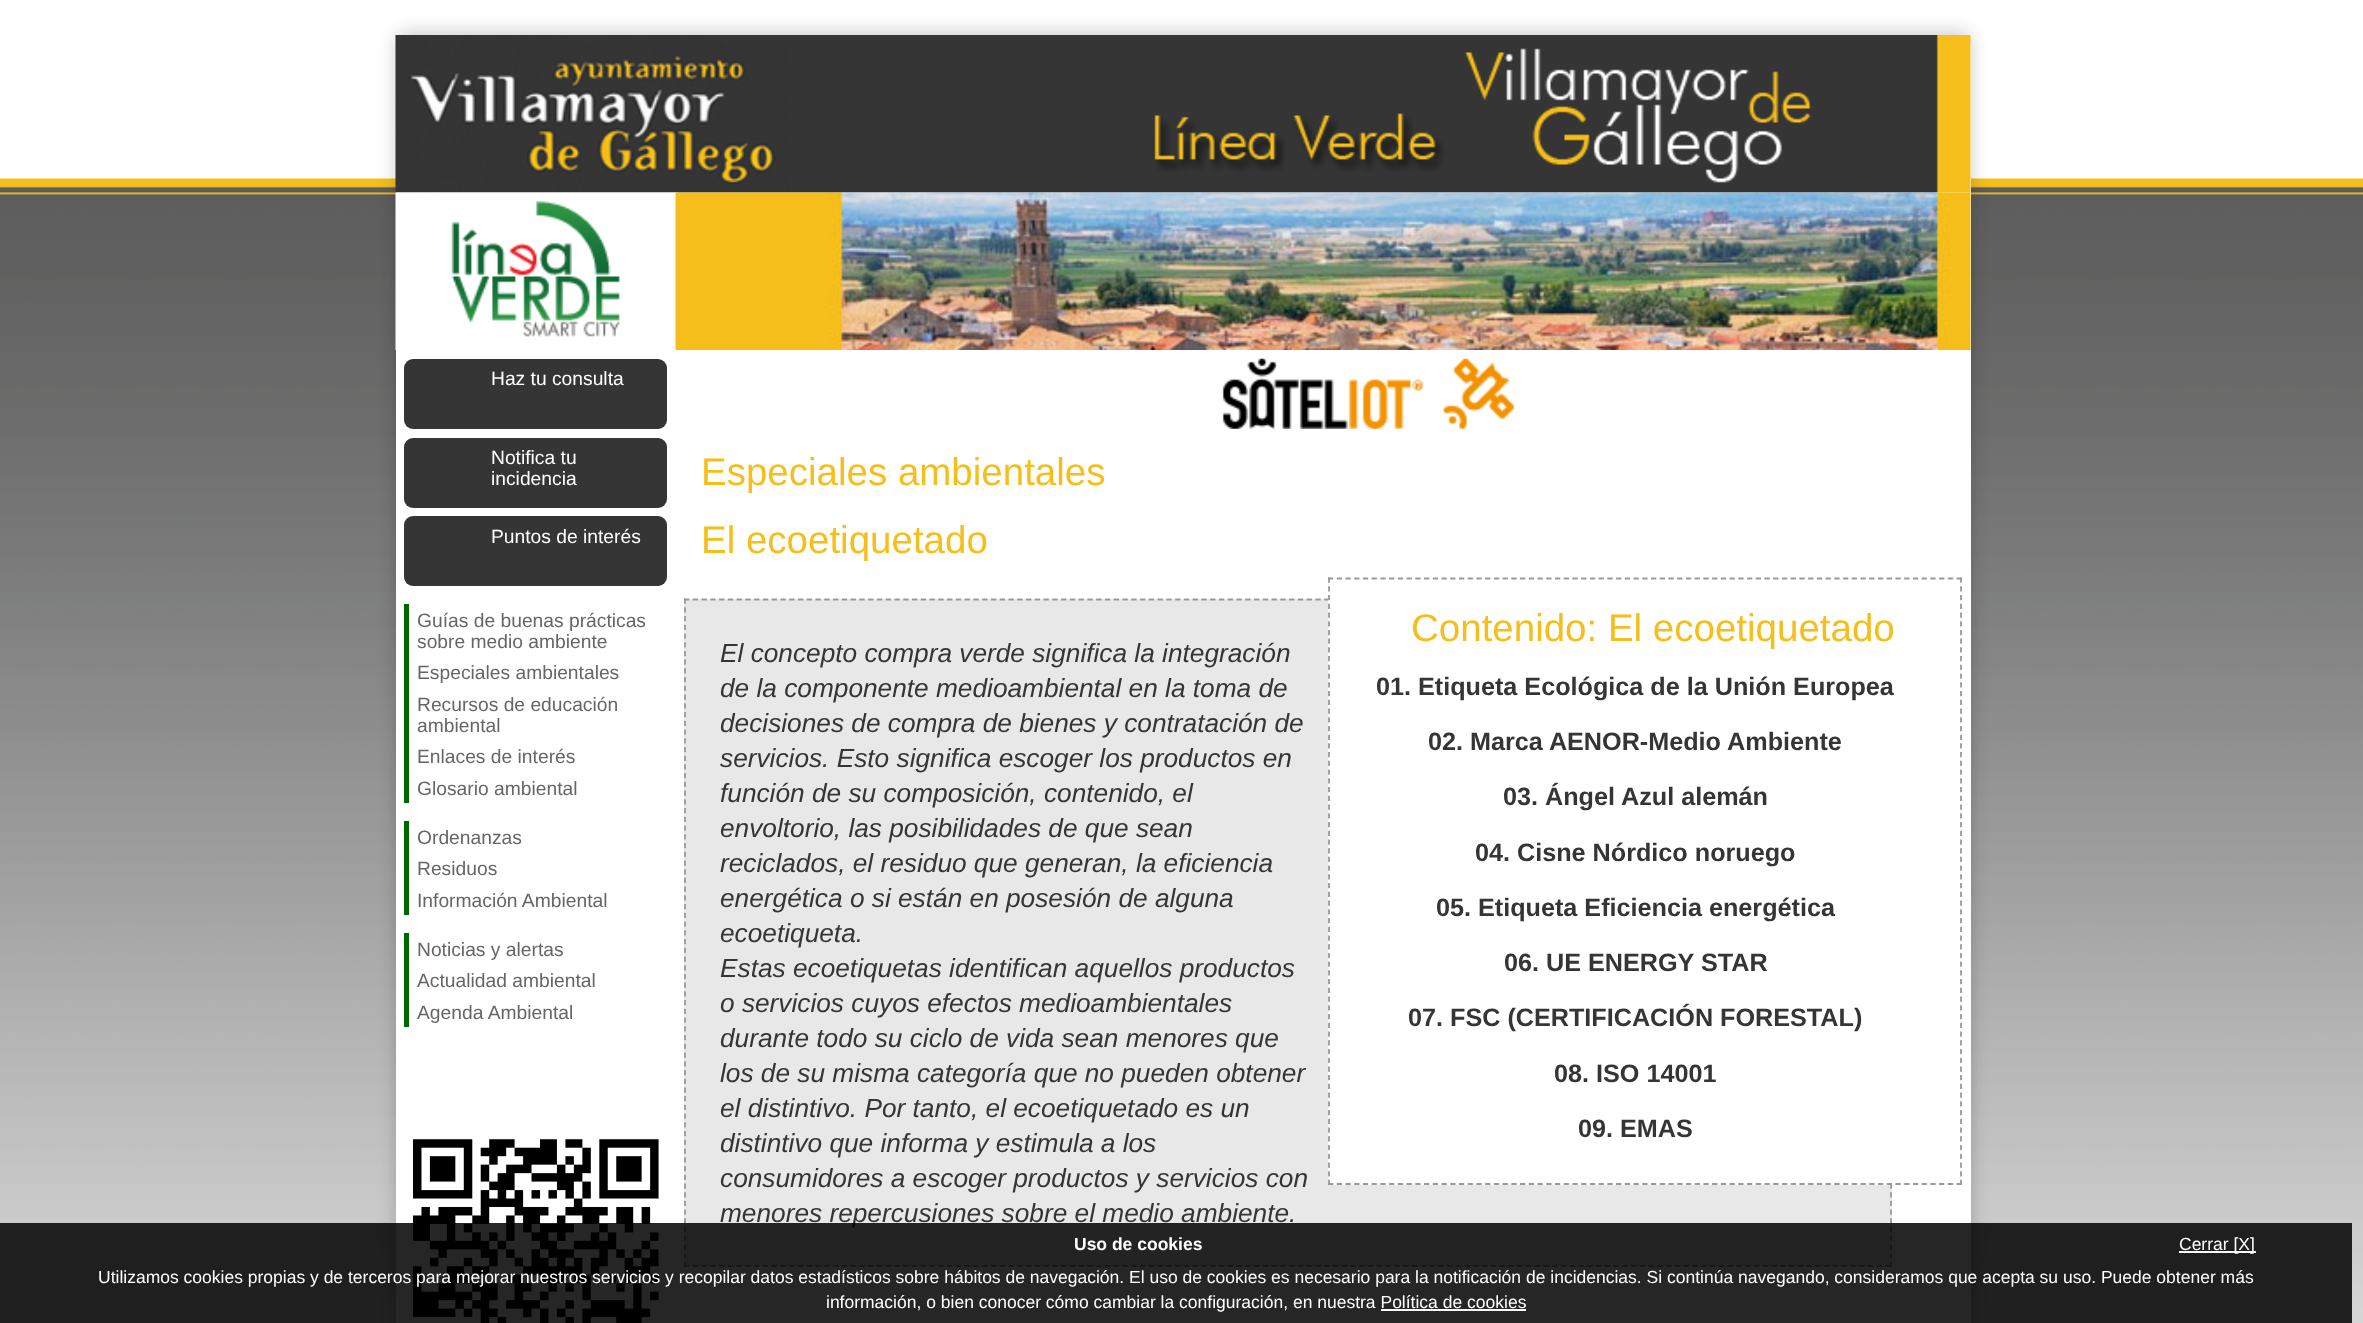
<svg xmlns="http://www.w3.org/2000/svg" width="2363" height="1323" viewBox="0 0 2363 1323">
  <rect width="100%" height="100%" fill="rgb(255,255,255)"/>
  <image x="0" y="178" width="2363" height="1145" href="pic1.png"/>
  <rect x="396" y="32" width="1575" height="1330" rx="12" fill="rgba(0,0,0,0.2)" filter="blur(9px)"/>
  <rect x="396" y="35" width="1575" height="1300" rx="12" fill="rgb(255,255,255)"/>
  <image x="395" y="35" width="1576" height="158" href="pic2.png"/>
  <image x="395" y="192" width="283" height="158" href="pic3.png"/>
  <image x="675" y="192" width="1296" height="158" href="pic4.png"/>
  <image x="1222" y="358" width="293" height="71" href="pic5.png"/>
  <rect x="404" y="359" width="263" height="70" rx="9" fill="rgb(53,53,53)"/>
  <text x="491" y="385" font-family="Liberation Sans" font-size="19.25" fill="rgb(255,255,255)">Haz tu consulta</text>
  <rect x="404" y="438" width="263" height="70" rx="9" fill="rgb(53,53,53)"/>
  <g font-family="Liberation Sans" font-size="19.25" fill="rgb(255,255,255)">
    <text>
      <tspan x="491" y="464">Notifica tu</tspan>
      <tspan x="491" y="485">incidencia</tspan>
    </text>
  </g>
  <rect x="404" y="516" width="263" height="70" rx="9" fill="rgb(53,53,53)"/>
  <text x="491" y="543" font-family="Liberation Sans" font-size="19.25" fill="rgb(255,255,255)">Puntos de interés</text>
  <rect x="404" y="604" width="5" height="199" fill="rgb(0,102,0)"/>
  <g font-family="Liberation Sans" font-size="19.25" fill="rgb(102,102,102)">
    <text>
      <tspan x="417" y="627">Guías de buenas prácticas</tspan>
      <tspan x="417" y="648">sobre medio ambiente</tspan>
      <tspan x="417" y="679">Especiales ambientales</tspan>
      <tspan x="417" y="711">Recursos de educación</tspan>
      <tspan x="417" y="732">ambiental</tspan>
      <tspan x="417" y="763">Enlaces de interés</tspan>
      <tspan x="417" y="795">Glosario ambiental</tspan>
    </text>
  </g>
  <rect x="404" y="821" width="5" height="94" fill="rgb(0,102,0)"/>
  <g font-family="Liberation Sans" font-size="19.25" fill="rgb(102,102,102)">
    <text>
      <tspan x="417" y="844">Ordenanzas</tspan>
      <tspan x="417" y="875">Residuos</tspan>
      <tspan x="417" y="907">Información Ambiental</tspan>
    </text>
  </g>
  <rect x="404" y="933" width="5" height="94" fill="rgb(0,102,0)"/>
  <g font-family="Liberation Sans" font-size="19.25" fill="rgb(102,102,102)">
    <text>
      <tspan x="417" y="956">Noticias y alertas</tspan>
      <tspan x="417" y="987">Actualidad ambiental</tspan>
      <tspan x="417" y="1019">Agenda Ambiental</tspan>
    </text>
  </g>
  <image x="412" y="1139" width="247" height="184" href="pic6.png"/>
  <g font-family="Liberation Sans" font-size="38.5" fill="rgb(245,190,27)">
    <text>
      <tspan x="701" y="485">Especiales ambientales</tspan>
      <tspan x="701" y="553">El ecoetiquetado</tspan>
    </text>
  </g>
  <rect x="684" y="599" width="1208" height="668" fill="rgb(232,232,232)"/>
  <path d="M684 599.5H1892" fill="none" stroke="rgb(153,153,153)" stroke-width="1.8" stroke-dasharray="5.25 3.52"/>
  <path d="M1891 598.5V1267" fill="none" stroke="rgb(153,153,153)" stroke-width="1.8" stroke-dasharray="5.25 3.48"/>
  <path d="M684 1266H1892" fill="none" stroke="rgb(153,153,153)" stroke-width="1.8" stroke-dasharray="5.25 3.52"/>
  <path d="M685 598.5V1267" fill="none" stroke="rgb(153,153,153)" stroke-width="1.8" stroke-dasharray="5.25 3.48"/>
  <g font-family="Liberation Sans" font-size="26.25" font-style="italic" fill="rgb(53,53,53)">
    <text>
      <tspan x="720" y="662">El concepto compra verde significa la integración</tspan>
      <tspan x="720" y="697">de la componente medioambiental en la toma de</tspan>
      <tspan x="720" y="732">decisiones de compra de bienes y contratación de</tspan>
      <tspan x="720" y="767">servicios. Esto significa escoger los productos en</tspan>
      <tspan x="720" y="802">función de su composición, contenido, el</tspan>
      <tspan x="720" y="837">envoltorio, las posibilidades de que sean</tspan>
      <tspan x="720" y="872">reciclados, el residuo que generan, la eficiencia</tspan>
      <tspan x="720" y="907">energética o si están en posesión de alguna</tspan>
      <tspan x="720" y="942">ecoetiqueta.</tspan>
      <tspan x="720" y="977">Estas ecoetiquetas identifican aquellos productos</tspan>
      <tspan x="720" y="1012">o servicios cuyos efectos medioambientales</tspan>
      <tspan x="720" y="1047">durante todo su ciclo de vida sean menores que</tspan>
      <tspan x="720" y="1082">los de su misma categoría que no pueden obtener</tspan>
      <tspan x="720" y="1117">el distintivo. Por tanto, el ecoetiquetado es un</tspan>
      <tspan x="720" y="1152">distintivo que informa y estimula a los</tspan>
      <tspan x="720" y="1187">consumidores a escoger productos y servicios con</tspan>
      <tspan x="720" y="1222">menores repercusiones sobre el medio ambiente.</tspan>
    </text>
  </g>
  <rect x="1328" y="598" width="564" height="587" fill="rgb(255,255,255)"/>
  <path d="M1328 578.5H1962" fill="none" stroke="rgb(153,153,153)" stroke-width="1.8" stroke-dasharray="5.25 3.48"/>
  <path d="M1961 577.5V1185" fill="none" stroke="rgb(153,153,153)" stroke-width="1.8" stroke-dasharray="5.25 3.48"/>
  <path d="M1328 1184H1962" fill="none" stroke="rgb(153,153,153)" stroke-width="1.8" stroke-dasharray="5.25 3.48"/>
  <path d="M1329 577.5V1185" fill="none" stroke="rgb(153,153,153)" stroke-width="1.8" stroke-dasharray="5.25 3.48"/>
  <text x="1411" y="641" font-family="Liberation Sans" font-size="38.5" fill="rgb(245,190,27)">Contenido: El ecoetiquetado</text>
  <g font-family="Liberation Sans" font-size="25.2" font-weight="bold" fill="rgb(53,53,53)">
    <text x="1376" y="695">01. Etiqueta Ecológica de la Unión Europea</text>
    <text x="1428" y="750">02. Marca AENOR-Medio Ambiente</text>
    <text x="1503" y="805">03. Ángel Azul alemán</text>
    <text x="1475" y="861">04. Cisne Nórdico noruego</text>
    <text x="1436" y="916">05. Etiqueta Eficiencia energética</text>
    <text x="1504" y="971">06. UE ENERGY STAR</text>
    <text x="1408" y="1026">07. FSC (CERTIFICACIÓN FORESTAL)</text>
    <text x="1554" y="1082">08. ISO 14001</text>
    <text x="1578" y="1137">09. EMAS</text>
  </g>
  <rect x="0" y="1223" width="2352" height="100" fill="rgba(0,0,0,0.85)"/>
  <text x="1074" y="1250" font-family="Liberation Sans" font-size="17.5" font-weight="bold" fill="rgb(255,255,255)">Uso de cookies</text>
  <rect x="2179" y="1251" width="77" height="2" fill="rgb(254,254,254)"/>
  <g font-family="Liberation Sans" font-size="17.5" fill="rgb(255,255,255)">
    <text x="2179" y="1250">Cerrar [X]</text>
    <text x="98" y="1283">Utilizamos cookies propias y de terceros para mejorar nuestros servicios y recopilar datos estadísticos sobre hábitos de navegación. El uso de cookies es necesario para la notificación de incidencias. Si continúa navegando, consideramos que acepta su uso. Puede obtener más</text>
    <text x="826" y="1308">información, o bien conocer cómo cambiar la configuración, en nuestra Política de cookies</text>
  </g>
  <rect x="1381" y="1309" width="145" height="2" fill="rgba(255,255,255,0.99)"/>
</svg>
